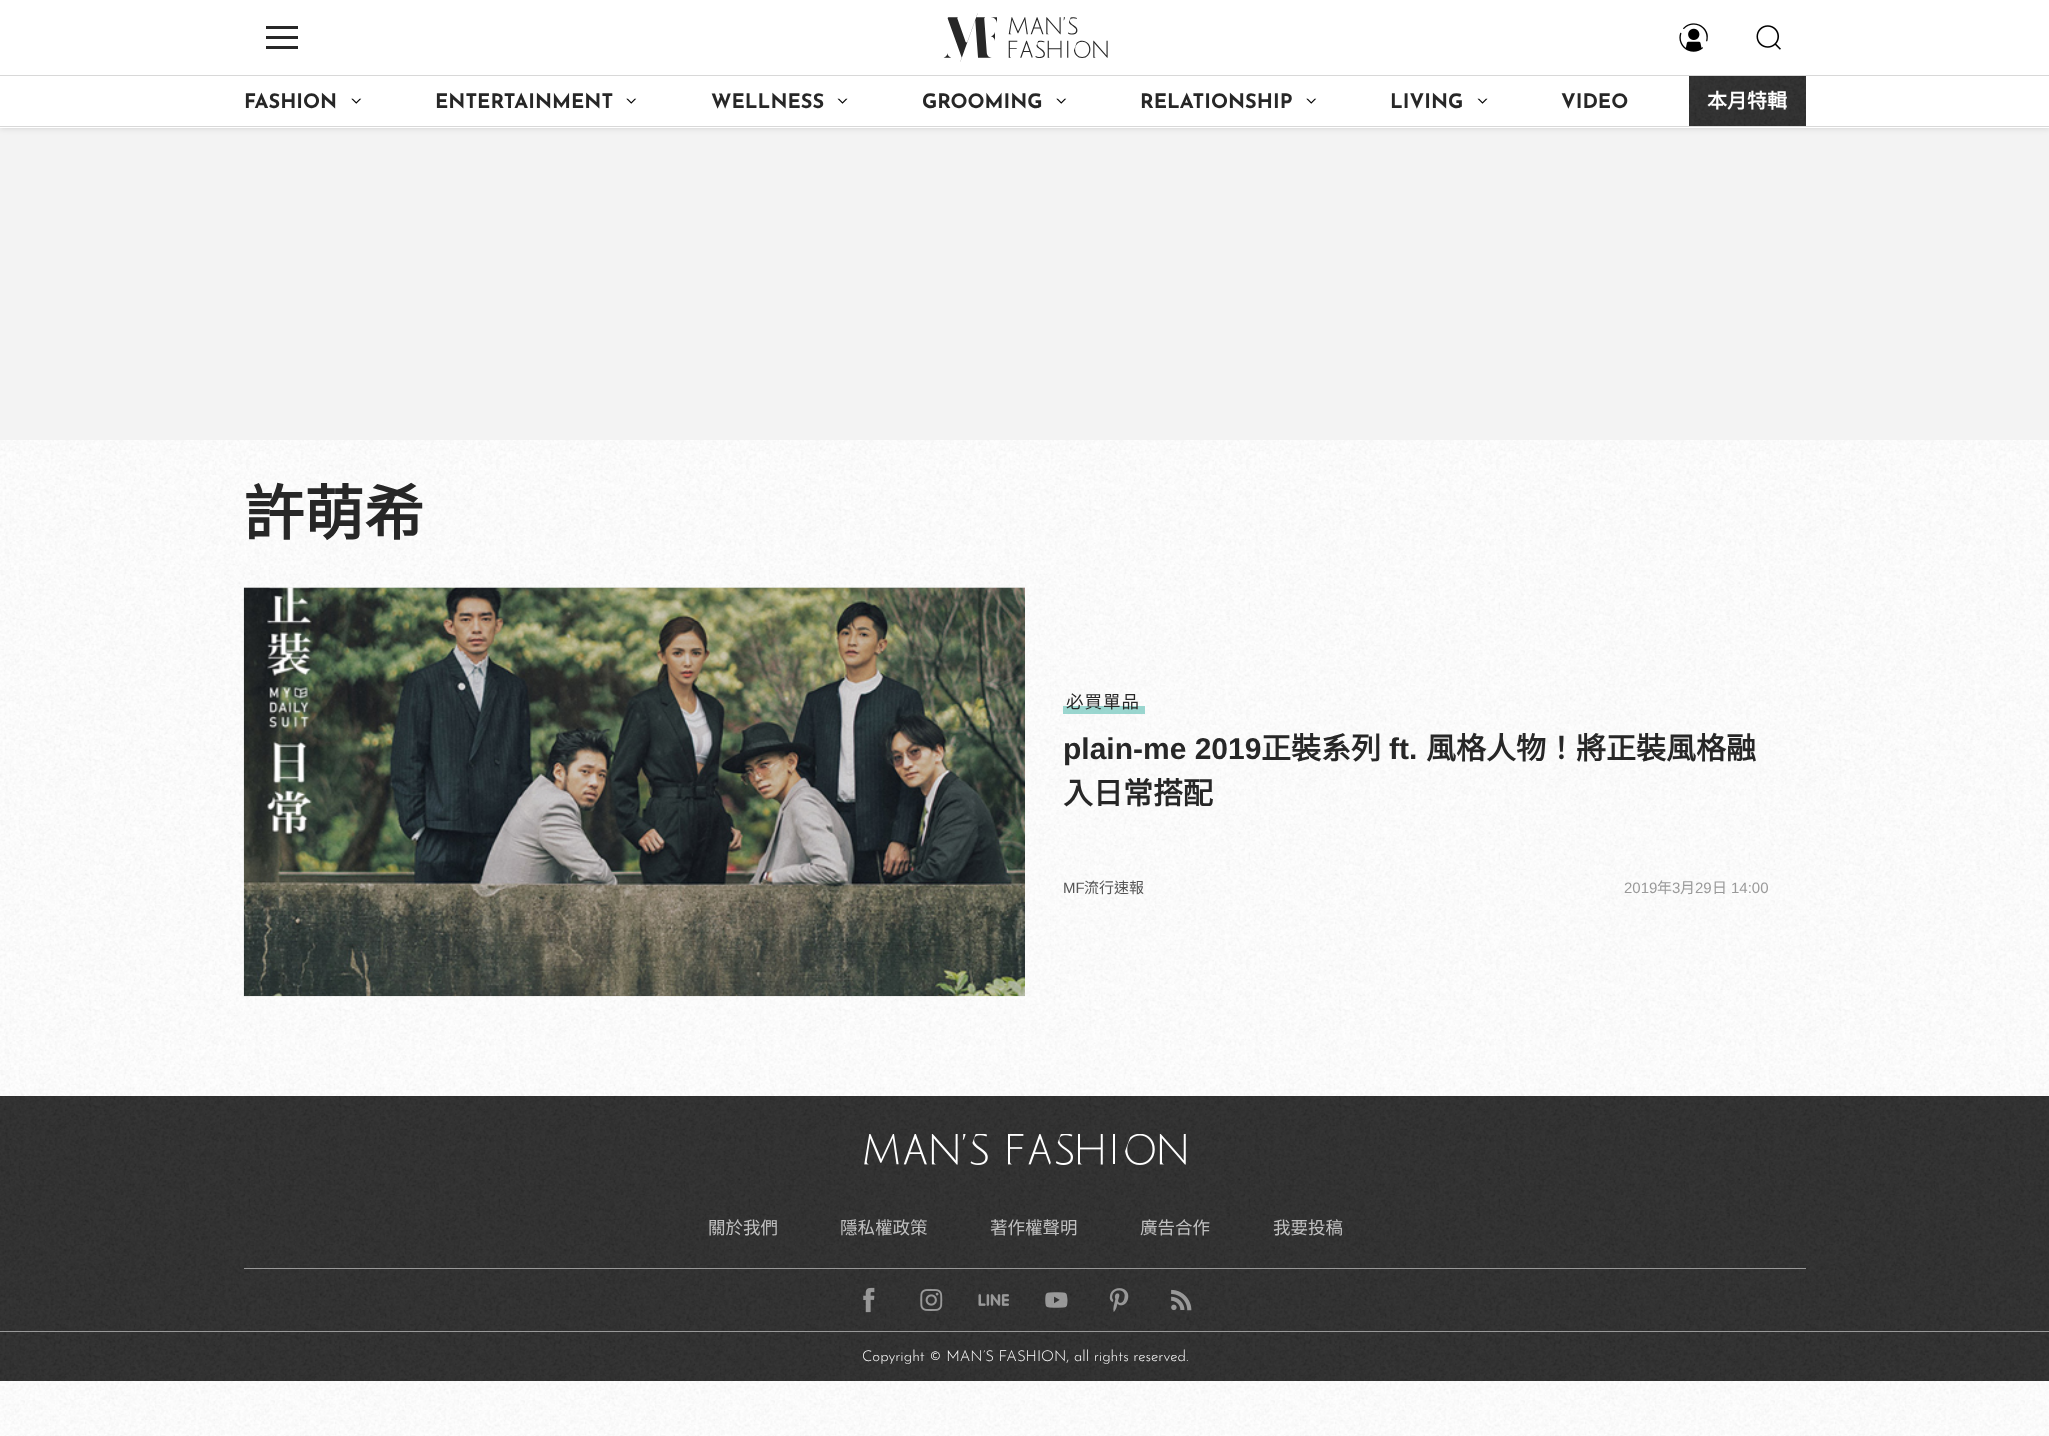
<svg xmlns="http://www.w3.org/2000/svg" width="2049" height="1436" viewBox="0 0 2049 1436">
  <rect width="100%" height="100%" fill="rgb(255,255,255)"/>
  <image x="0" y="440" width="2049" height="996" href="pic1.png"/>
  <rect x="0" y="128" width="2049" height="312" fill="rgb(243,243,243)"/>
  <rect x="0" y="0" width="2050" height="128" fill="rgba(0,0,0,0.15)" filter="blur(3px)"/>
  <rect x="0" y="0" width="2049" height="128" fill="rgb(255,255,255)"/>
  <rect x="266" y="26" width="32" height="3" fill="rgb(39,39,39)"/>
  <rect x="266" y="36" width="32" height="3" fill="rgb(39,39,39)"/>
  <rect x="266" y="46" width="32" height="3" fill="rgb(39,39,39)"/>
  <image x="943" y="13" width="165" height="49" href="pic2.png"/>
  <image x="1679" y="23" width="29" height="29" href="pic3.png"/>
  <image x="1756" y="25" width="25" height="25" href="pic4.png"/>
  <rect x="0" y="75" width="2049" height="1" fill="rgb(216,216,216)"/>
  <rect x="0" y="126" width="2049" height="1" fill="rgb(216,216,216)"/>
  <text x="244" y="108" font-family="Josefin Sans" font-size="20" font-weight="bold" fill="rgb(39,39,39)">FASHION</text>
  <image x="351" y="98" width="11" height="6" href="pic5.png"/>
  <text x="435" y="108" font-family="Josefin Sans" font-size="20" font-weight="bold" fill="rgb(39,39,39)">ENTERTAINMENT</text>
  <image x="626" y="98" width="11" height="6" href="pic5.png"/>
  <text x="711" y="108" font-family="Josefin Sans" font-size="20" font-weight="bold" fill="rgb(39,39,39)">WELLNESS</text>
  <image x="837" y="98" width="11" height="6" href="pic6.png"/>
  <text x="922" y="108" font-family="Josefin Sans" font-size="20" font-weight="bold" fill="rgb(39,39,39)">GROOMING</text>
  <image x="1056" y="98" width="11" height="6" href="pic5.png"/>
  <text x="1140" y="108" font-family="Josefin Sans" font-size="20" font-weight="bold" fill="rgb(39,39,39)">RELATIONSHIP</text>
  <image x="1306" y="98" width="11" height="6" href="pic5.png"/>
  <text x="1390" y="108" font-family="Josefin Sans" font-size="20" font-weight="bold" fill="rgb(39,39,39)">LIVING</text>
  <image x="1477" y="98" width="11" height="6" href="pic6.png"/>
  <text x="1561" y="108" font-family="Josefin Sans" font-size="20" font-weight="bold" fill="rgb(39,39,39)">VIDEO</text>
  <rect x="1689" y="76" width="117" height="50" fill="rgb(39,39,39)"/>
  <image x="1689" y="76" width="117" height="50" href="pic7.png"/>
  <text x="1707" y="108" font-family="Noto Sans CJK TC" font-size="20" font-weight="bold" fill="rgb(255,255,255)">本月特輯</text>
  <text x="244" y="535" font-family="Noto Sans CJK TC" font-size="60" font-weight="bold" fill="rgb(39,39,39)">許萌希</text>
  <image x="244" y="587" width="781" height="1" href="pic9.png"/>
  <image x="243" y="587" width="782" height="410" href="pic8.png"/>
  <rect x="1063" y="706" width="82" height="8" fill="rgba(113,198,188,0.7)"/>
  <text x="1066" y="708" font-family="Noto Sans CJK TC" font-size="17.5" letter-spacing="1" fill="rgb(39,39,39)">必買單品</text>
  <text x="1063" y="759" font-family="Liberation Sans" font-size="30" font-weight="bold" fill="rgb(39,39,39)">plain-me 2019</text>
  <text x="1261" y="759" font-family="Noto Sans CJK TC" font-size="30" font-weight="bold" fill="rgb(39,39,39)">正裝系列</text>
  <text x="1389" y="759" font-family="Liberation Sans" font-size="30" font-weight="bold" fill="rgb(39,39,39)">ft.</text>
  <g font-family="Noto Sans CJK TC" font-size="30" font-weight="bold" fill="rgb(39,39,39)">
    <text x="1426" y="759">風格人物！將正裝風格融</text>
    <text x="1063" y="804">入日常搭配</text>
  </g>
  <text x="1063" y="893" font-family="Liberation Sans" font-size="15" fill="rgb(85,85,85)">MF</text>
  <text x="1084" y="893" font-family="Noto Sans CJK TC" font-size="15" fill="rgb(85,85,85)">流行速報</text>
  <text x="1624" y="893" font-family="Liberation Sans" font-size="15" fill="rgb(153,153,153)">2019</text>
  <text x="1657" y="893" font-family="Noto Sans CJK TC" font-size="15" fill="rgb(153,153,153)">年</text>
  <text x="1672" y="893" font-family="Liberation Sans" font-size="15" fill="rgb(153,153,153)">3</text>
  <text x="1680" y="893" font-family="Noto Sans CJK TC" font-size="15" fill="rgb(153,153,153)">月</text>
  <text x="1695" y="893" font-family="Liberation Sans" font-size="15" fill="rgb(153,153,153)">29</text>
  <text x="1712" y="893" font-family="Noto Sans CJK TC" font-size="15" fill="rgb(153,153,153)">日</text>
  <text x="1731" y="893" font-family="Liberation Sans" font-size="15" fill="rgb(153,153,153)">14:00</text>
  <rect x="0" y="1096" width="2049" height="285" fill="rgb(39,39,39)"/>
  <image x="0" y="1096" width="2049" height="285" href="pic10.png"/>
  <image x="864" y="1134" width="322" height="31" href="pic11.png"/>
  <g font-family="Noto Sans CJK TC" font-size="17.5" fill="rgb(193,193,193)">
    <text x="708" y="1234">關於我們</text>
    <text x="840" y="1234">隱私權政策</text>
    <text x="990" y="1234">著作權聲明</text>
    <text x="1140" y="1234">廣告合作</text>
    <text x="1273" y="1234">我要投稿</text>
  </g>
  <rect x="244" y="1268" width="1562" height="1" fill="rgb(153,153,153)"/>
  <image x="863" y="1287" width="12" height="26" href="pic12.png"/>
  <image x="920" y="1289" width="23" height="22" href="pic13.png"/>
  <image x="978" y="1294" width="31" height="12" href="pic14.png"/>
  <image x="1045" y="1292" width="23" height="16" href="pic15.png"/>
  <image x="1109" y="1288" width="20" height="24" href="pic16.png"/>
  <image x="1171" y="1289" width="21" height="22" href="pic17.png"/>
  <rect x="0" y="1331" width="2049" height="1" fill="rgb(153,153,153)"/>
  <text x="862" y="1361" font-family="Josefin Sans" font-size="15" font-weight="300" fill="rgb(255,255,255)">Copyright © MAN’S FASHION, all rights reserved.</text>
</svg>
